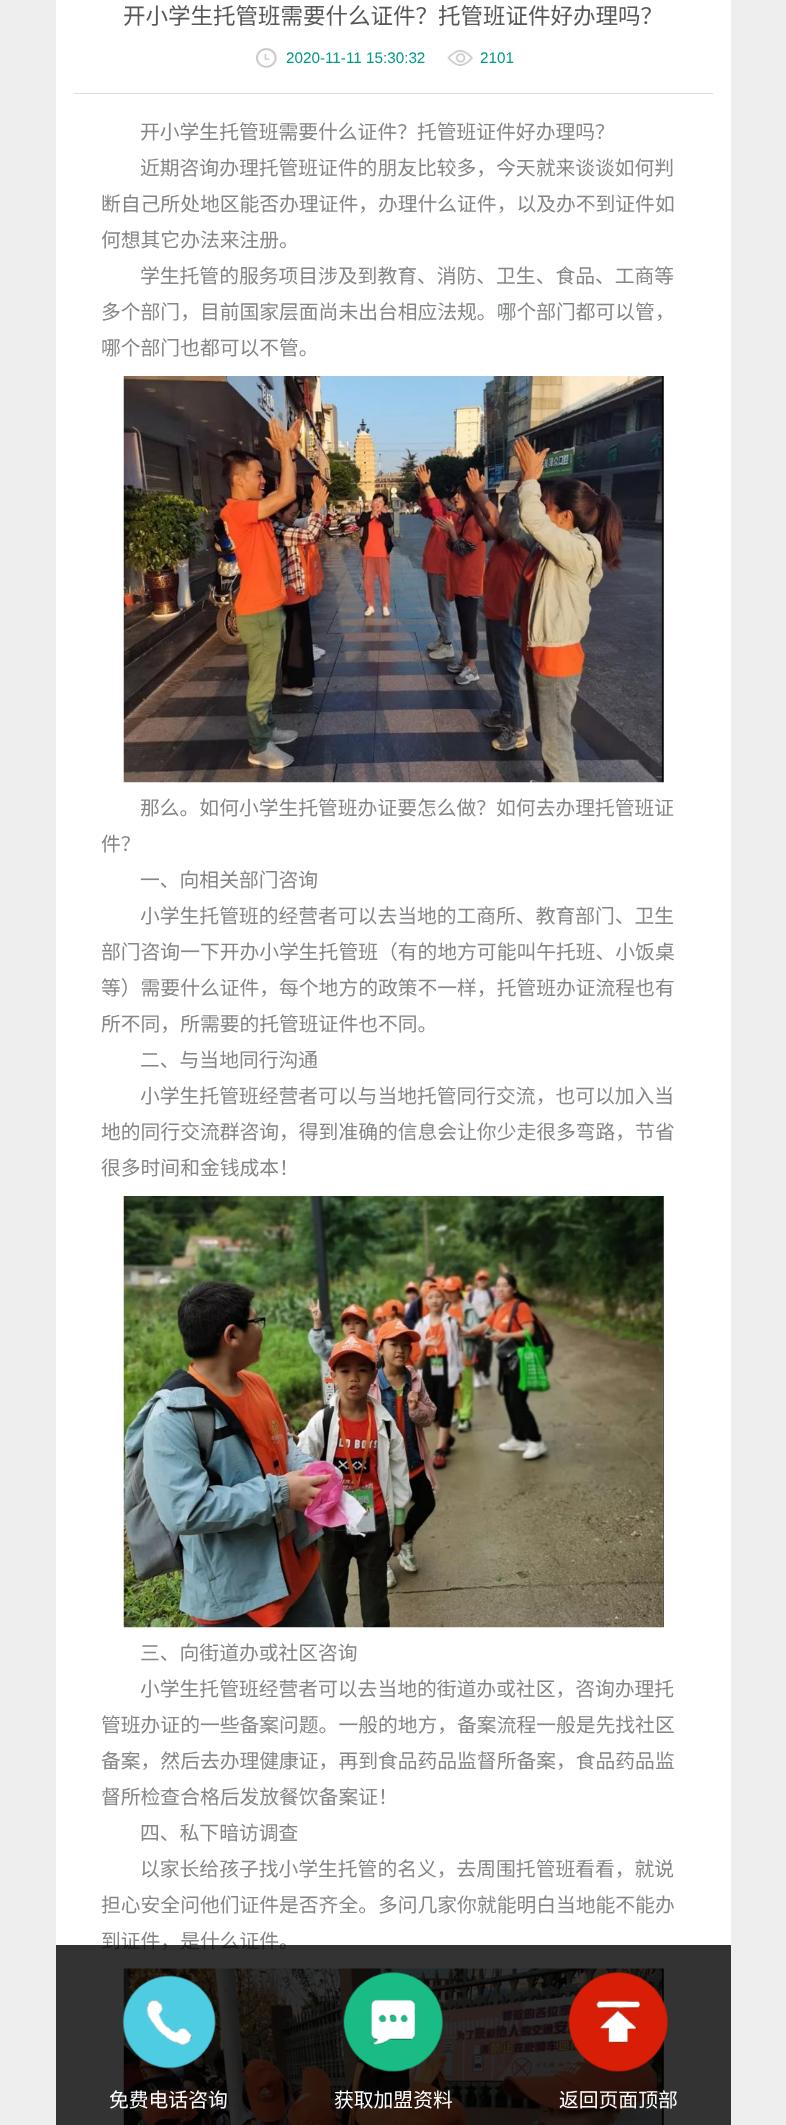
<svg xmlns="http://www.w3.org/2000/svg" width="786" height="2125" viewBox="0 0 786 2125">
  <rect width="100%" height="100%" fill="rgb(238,238,238)"/>
  <rect x="56" y="0" width="675" height="2125" fill="rgb(255,255,255)"/>
  <rect x="74" y="93" width="639" height="1" fill="rgb(221,221,221)"/>
  <text x="123" y="24" font-family="Noto Sans CJK SC" font-size="22.5" fill="rgb(87,88,87)">开小学生托管班需要什么证件？托管班证件好办理吗？</text>
  <image x="256" y="48" width="21" height="20" href="pic1.png"/>
  <text x="286" y="63" font-family="Liberation Sans" font-size="15.25" fill="rgb(0,155,131)">2020-11-11 15:30:32</text>
  <image x="447" y="50" width="26" height="16" href="pic2.png"/>
  <text x="480" y="63" font-family="Liberation Sans" font-size="15.25" fill="rgb(0,155,131)">2101</text>
  <g font-family="Noto Sans CJK SC" font-size="19.8" fill="rgb(133,134,134)">
    <text>
      <tspan x="140" y="139">开小学生托管班需要什么证件？托管班证件好办理吗？</tspan>
      <tspan x="140" y="175">近期咨询办理托管班证件的朋友比较多，今天就来谈谈如何判</tspan>
    </text>
    <text>
      <tspan x="101" y="211">断自己所处地区能否办理证件，办理什么证件，以及办不到证件如</tspan>
      <tspan x="101" y="247">何想其它办法来注册。</tspan>
    </text>
    <text x="140" y="283">学生托管的服务项目涉及到教育、消防、卫生、食品、工商等</text>
    <text>
      <tspan x="101" y="319">多个部门，目前国家层面尚未出台相应法规。哪个部门都可以管，</tspan>
      <tspan x="101" y="355">哪个部门也都可以不管。</tspan>
    </text>
  </g>
  <image x="123" y="376" width="541" height="407" href="pic3.png"/>
  <g font-family="Noto Sans CJK SC" font-size="19.8" fill="rgb(133,134,134)">
    <text x="140" y="815">那么。如何小学生托管班办证要怎么做？如何去办理托管班证</text>
    <text x="101" y="851">件？</text>
    <text>
      <tspan x="140" y="887">一、向相关部门咨询</tspan>
      <tspan x="140" y="923">小学生托管班的经营者可以去当地的工商所、教育部门、卫生</tspan>
    </text>
    <text>
      <tspan x="101" y="959">部门咨询一下开办小学生托管班（有的地方可能叫午托班、小饭桌</tspan>
      <tspan x="101" y="995">等）需要什么证件，每个地方的政策不一样，托管班办证流程也有</tspan>
      <tspan x="101" y="1031">所不同，所需要的托管班证件也不同。</tspan>
    </text>
    <text>
      <tspan x="140" y="1067">二、与当地同行沟通</tspan>
      <tspan x="140" y="1103">小学生托管班经营者可以与当地托管同行交流，也可以加入当</tspan>
    </text>
    <text>
      <tspan x="101" y="1139">地的同行交流群咨询，得到准确的信息会让你少走很多弯路，节省</tspan>
      <tspan x="101" y="1175">很多时间和金钱成本！</tspan>
    </text>
  </g>
  <image x="123" y="1196" width="541" height="432" href="pic4.png"/>
  <g font-family="Noto Sans CJK SC" font-size="19.8" fill="rgb(133,134,134)">
    <text>
      <tspan x="140" y="1660">三、向街道办或社区咨询</tspan>
      <tspan x="140" y="1696">小学生托管班经营者可以去当地的街道办或社区，咨询办理托</tspan>
    </text>
    <text>
      <tspan x="101" y="1732">管班办证的一些备案问题。一般的地方，备案流程一般是先找社区</tspan>
      <tspan x="101" y="1768">备案，然后去办理健康证，再到食品药品监督所备案，食品药品监</tspan>
      <tspan x="101" y="1804">督所检查合格后发放餐饮备案证！</tspan>
    </text>
    <text>
      <tspan x="140" y="1840">四、私下暗访调查</tspan>
      <tspan x="140" y="1876">以家长给孩子找小学生托管的名义，去周围托管班看看，就说</tspan>
    </text>
    <text>
      <tspan x="101" y="1912">担心安全问他们证件是否齐全。多问几家你就能明白当地能不能办</tspan>
      <tspan x="101" y="1948">到证件，是什么证件。</tspan>
    </text>
  </g>
  <image x="123" y="1968" width="541" height="157" href="pic5.png"/>
  <rect x="56" y="1945" width="675" height="180" fill="rgba(0,0,0,0.8)"/>
  <image x="122" y="1975" width="94" height="94" href="pic6.png"/>
  <text x="109" y="2107" font-family="Noto Sans CJK SC" font-size="19.8" fill="rgb(255,255,255)">免费电话咨询</text>
  <image x="343" y="1972" width="100" height="100" href="pic7.png"/>
  <text x="334" y="2107" font-family="Noto Sans CJK SC" font-size="19.8" fill="rgb(255,255,255)">获取加盟资料</text>
  <image x="568" y="1972" width="100" height="100" href="pic8.png"/>
  <text x="559" y="2107" font-family="Noto Sans CJK SC" font-size="19.8" fill="rgb(255,255,255)">返回页面顶部</text>
</svg>
